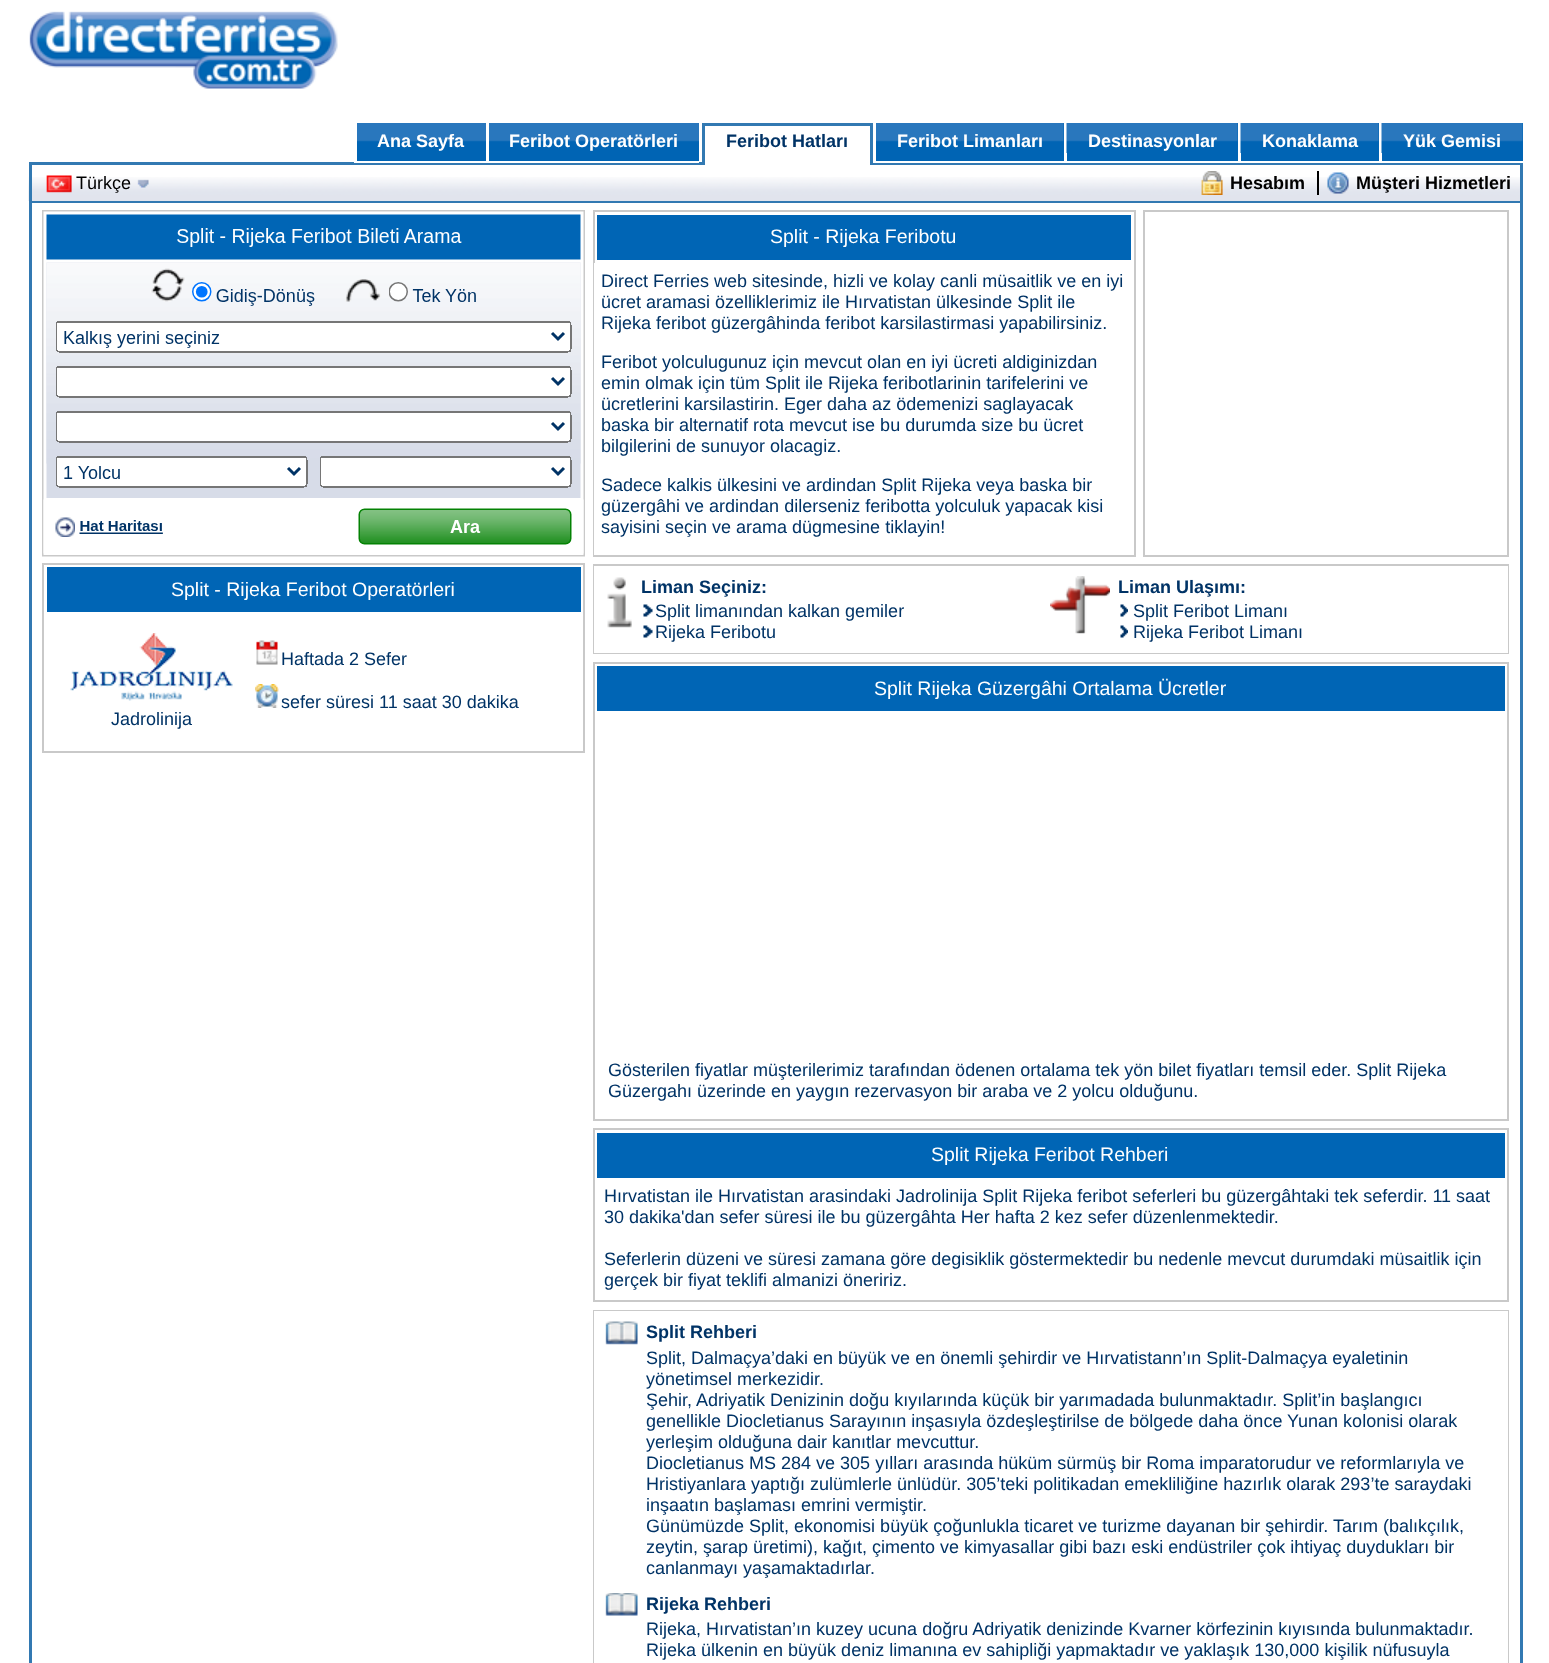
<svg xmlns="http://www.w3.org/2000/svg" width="1549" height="1663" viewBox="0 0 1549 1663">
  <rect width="100%" height="100%" fill="rgb(255,255,255)"/>
  <image x="29" y="11" width="309" height="78" href="pic1.png"/>
  <rect x="29" y="162" width="1494" height="3" fill="rgb(50,121,178)"/>
  <rect x="354" y="162" width="345" height="1" fill="rgb(255,255,255)"/>
  <rect x="357" y="142" width="129" height="19" fill="rgb(0,100,180)"/>
  <image x="357" y="123" width="129" height="19" href="pic2.png"/>
  <text x="377" y="147" font-family="Liberation Sans" font-size="18" font-weight="bold" fill="rgb(255,255,255)">Ana Sayfa</text>
  <rect x="489" y="142" width="210" height="19" fill="rgb(0,100,180)"/>
  <image x="489" y="123" width="210" height="19" href="pic3.png"/>
  <text x="509" y="147" font-family="Liberation Sans" font-size="18" font-weight="bold" fill="rgb(255,255,255)">Feribot Operatörleri</text>
  <rect x="705" y="162" width="165" height="3" fill="rgb(255,255,255)"/>
  <rect x="702" y="123" width="171" height="3" fill="rgb(50,121,178)"/>
  <rect x="870" y="123" width="3" height="42" fill="rgb(50,121,178)"/>
  <rect x="702" y="123" width="3" height="42" fill="rgb(50,121,178)"/>
  <text x="726" y="147" font-family="Liberation Sans" font-size="18" font-weight="bold" fill="rgb(0,51,102)">Feribot Hatları</text>
  <rect x="873" y="162" width="650" height="1" fill="rgb(255,255,255)"/>
  <rect x="876" y="123" width="188" height="38" fill="rgb(0,100,180)"/>
  <image x="876" y="123" width="188" height="19" href="pic4.png"/>
  <text x="897" y="147" font-family="Liberation Sans" font-size="18" font-weight="bold" fill="rgb(255,255,255)">Feribot Limanları</text>
  <rect x="1067" y="123" width="171" height="38" fill="rgb(0,100,180)"/>
  <image x="1066" y="123" width="172" height="30" href="pic5.png"/>
  <text x="1088" y="147" font-family="Liberation Sans" font-size="18" font-weight="bold" fill="rgb(255,255,255)">Destinasyonlar</text>
  <rect x="1241" y="123" width="138" height="38" fill="rgb(0,100,180)"/>
  <image x="1240" y="123" width="139" height="30" href="pic6.png"/>
  <text x="1262" y="147" font-family="Liberation Sans" font-size="18" font-weight="bold" fill="rgb(255,255,255)">Konaklama</text>
  <rect x="1382" y="123" width="141" height="38" fill="rgb(0,100,180)"/>
  <image x="1381" y="123" width="142" height="30" href="pic7.png"/>
  <text x="1403" y="147" font-family="Liberation Sans" font-size="18" font-weight="bold" fill="rgb(255,255,255)">Yük Gemisi</text>
  <image x="28" y="177" width="1492" height="24" href="pic8.png"/>
  <rect x="1520" y="165" width="3" height="1498" fill="rgb(50,121,178)"/>
  <rect x="29" y="201" width="1494" height="2" fill="rgb(50,121,178)"/>
  <rect x="29" y="165" width="3" height="38" fill="rgb(50,121,178)"/>
  <image x="46" y="175" width="26" height="18" href="pic9.png"/>
  <text x="76" y="189" font-family="Liberation Sans" font-size="18" fill="rgb(0,0,0)">Türkçe</text>
  <image x="137" y="179" width="12" height="9" href="pic10.png"/>
  <image x="1201" y="171" width="22" height="24" href="pic11.png"/>
  <text x="1230" y="189" font-family="Liberation Sans" font-size="18" font-weight="bold" fill="rgb(0,0,0)">Hesabım</text>
  <rect x="1317" y="171" width="2" height="24" fill="rgb(0,0,0)"/>
  <image x="1327" y="172" width="22" height="22" href="pic12.png"/>
  <text x="1356" y="189" font-family="Liberation Sans" font-size="18" font-weight="bold" fill="rgb(0,0,0)">Müşteri Hizmetleri</text>
  <rect x="29" y="203" width="3" height="1460" fill="rgb(50,121,178)"/>
  <image x="42" y="210" width="543" height="347" href="pic13.png"/>
  <rect x="43" y="564" width="541" height="188" fill="none" stroke="rgb(201,201,201)" stroke-width="2"/>
  <rect x="47" y="567" width="534" height="45" fill="rgb(0,101,181)"/>
  <text x="171" y="596" font-family="Liberation Sans" font-size="19.5" fill="rgb(255,255,255)">Split - Rijeka Feribot Operatörleri</text>
  <image x="256" y="640" width="22" height="25" href="pic14.png"/>
  <text x="281" y="665" font-family="Liberation Sans" font-size="18" fill="rgb(0,51,102)">Haftada 2 Sefer</text>
  <image x="255" y="684" width="24" height="24" href="pic15.png"/>
  <text x="281" y="708" font-family="Liberation Sans" font-size="18" fill="rgb(0,51,102)">sefer süresi 11 saat 30 dakika</text>
  <image x="70" y="633" width="163" height="68" href="pic16.png"/>
  <text x="111" y="725" font-family="Liberation Sans" font-size="18" fill="rgb(0,51,102)">Jadrolinija</text>
  <rect x="594" y="211" width="541" height="345" fill="none" stroke="rgb(201,201,201)" stroke-width="2"/>
  <rect x="597" y="215" width="534" height="45" fill="rgb(0,101,181)"/>
  <text x="770" y="243" font-family="Liberation Sans" font-size="19.5" fill="rgb(255,255,255)">Split - Rijeka Feribotu</text>
  <rect x="594" y="263" width="1" height="292" fill="rgb(255,255,255)"/>
  <g font-family="Liberation Sans" font-size="18" fill="rgb(0,51,102)">
    <text>
      <tspan x="601" y="287">Direct Ferries web sitesinde, hizli ve kolay canli müsaitlik ve en iyi</tspan>
      <tspan x="601" y="308">ücret aramasi özelliklerimiz ile Hırvatistan ülkesinde Split ile</tspan>
      <tspan x="601" y="329">Rijeka feribot güzergâhinda feribot karsilastirmasi yapabilirsiniz.</tspan>
    </text>
    <text>
      <tspan x="601" y="368">Feribot yolculugunuz için mevcut olan en iyi ücreti aldiginizdan</tspan>
      <tspan x="601" y="389">emin olmak için tüm Split ile Rijeka feribotlarinin tarifelerini ve</tspan>
      <tspan x="601" y="410">ücretlerini karsilastirin. Eger daha az ödemenizi saglayacak</tspan>
      <tspan x="601" y="431">baska bir alternatif rota mevcut ise bu durumda size bu ücret</tspan>
      <tspan x="601" y="452">bilgilerini de sunuyor olacagiz.</tspan>
    </text>
    <text>
      <tspan x="601" y="491">Sadece kalkis ülkesini ve ardindan Split Rijeka veya baska bir</tspan>
      <tspan x="601" y="512">güzergâhi ve ardindan dilerseniz feribotta yolculuk yapacak kisi</tspan>
      <tspan x="601" y="533">sayisini seçin ve arama dügmesine tiklayin!</tspan>
    </text>
  </g>
  <rect x="1144" y="211" width="364" height="345" fill="none" stroke="rgb(201,201,201)" stroke-width="2"/>
  <rect x="594" y="565" width="914" height="88" fill="none" stroke="rgb(201,201,201)" stroke-width="2"/>
  <rect x="594" y="566" width="914" height="87" fill="rgb(255,255,255)"/>
  <image x="607" y="577" width="25" height="51" href="pic17.png"/>
  <text x="641" y="593" font-family="Liberation Sans" font-size="18" font-weight="bold" fill="rgb(0,51,102)">Liman Seçiniz:</text>
  <image x="643" y="604" width="10" height="13" href="pic18.png"/>
  <text x="655" y="617" font-family="Liberation Sans" font-size="18" fill="rgb(0,51,102)">Split limanından kalkan gemiler</text>
  <image x="643" y="625" width="10" height="13" href="pic18.png"/>
  <text x="655" y="638" font-family="Liberation Sans" font-size="18" fill="rgb(0,51,102)">Rijeka Feribotu</text>
  <image x="1050" y="576" width="60" height="58" href="pic19.png"/>
  <text x="1118" y="593" font-family="Liberation Sans" font-size="18" font-weight="bold" fill="rgb(0,51,102)">Liman Ulaşımı:</text>
  <image x="1120" y="604" width="8" height="13" href="pic20.png"/>
  <text x="1133" y="617" font-family="Liberation Sans" font-size="18" fill="rgb(0,51,102)">Split Feribot Limanı</text>
  <image x="1120" y="625" width="8" height="13" href="pic20.png"/>
  <text x="1133" y="638" font-family="Liberation Sans" font-size="18" fill="rgb(0,51,102)">Rijeka Feribot Limanı</text>
  <rect x="594" y="663" width="914" height="457" fill="none" stroke="rgb(201,201,201)" stroke-width="2"/>
  <rect x="597" y="666" width="908" height="45" fill="rgb(0,101,181)"/>
  <text x="874" y="695" font-family="Liberation Sans" font-size="19.5" fill="rgb(255,255,255)">Split Rijeka Güzergâhi Ortalama Ücretler</text>
  <g font-family="Liberation Sans" font-size="18" fill="rgb(0,51,102)">
    <text>
      <tspan x="608" y="1076">Gösterilen fiyatlar müşterilerimiz tarafından ödenen ortalama tek yön bilet fiyatları temsil eder. Split Rijeka</tspan>
      <tspan x="608" y="1097">Güzergahı üzerinde en yaygın rezervasyon bir araba ve 2 yolcu olduğunu.</tspan>
    </text>
  </g>
  <rect x="594" y="1129" width="914" height="172" fill="none" stroke="rgb(201,201,201)" stroke-width="2"/>
  <rect x="597" y="1133" width="908" height="45" fill="rgb(0,101,181)"/>
  <text x="931" y="1161" font-family="Liberation Sans" font-size="19.5" fill="rgb(255,255,255)">Split Rijeka Feribot Rehberi</text>
  <g font-family="Liberation Sans" font-size="18" fill="rgb(0,51,102)">
    <text>
      <tspan x="604" y="1202">Hırvatistan ile Hırvatistan arasindaki Jadrolinija Split Rijeka feribot seferleri bu güzergâhtaki tek seferdir. 11 saat</tspan>
      <tspan x="604" y="1223">30 dakika'dan sefer süresi ile bu güzergâhta Her hafta 2 kez sefer düzenlenmektedir.</tspan>
    </text>
    <text>
      <tspan x="604" y="1265">Seferlerin düzeni ve süresi zamana göre degisiklik göstermektedir bu nedenle mevcut durumdaki müsaitlik için</tspan>
      <tspan x="604" y="1286">gerçek bir fiyat teklifi almanizi öneririz.</tspan>
    </text>
  </g>
  <rect x="594" y="1311" width="914" height="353" fill="none" stroke="rgb(201,201,201)" stroke-width="2"/>
  <rect x="594" y="1311" width="914" height="352" fill="rgb(255,255,255)"/>
  <image x="605" y="1321" width="33" height="24" href="pic21.png"/>
  <text x="646" y="1338" font-family="Liberation Sans" font-size="18" font-weight="bold" fill="rgb(0,51,102)">Split Rehberi</text>
  <g font-family="Liberation Sans" font-size="18" fill="rgb(0,51,102)">
    <text>
      <tspan x="646" y="1364">Split, Dalmaçya’daki en büyük ve en önemli şehirdir ve Hırvatistann’ın Split-Dalmaçya eyaletinin</tspan>
      <tspan x="646" y="1385">yönetimsel merkezidir.</tspan>
      <tspan x="646" y="1406">Şehir, Adriyatik Denizinin doğu kıyılarında küçük bir yarımadada bulunmaktadır. Split’in başlangıcı</tspan>
      <tspan x="646" y="1427">genellikle Diocletianus Sarayının inşasıyla özdeşleştirilse de bölgede daha önce Yunan kolonisi olarak</tspan>
      <tspan x="646" y="1448">yerleşim olduğuna dair kanıtlar mevcuttur.</tspan>
      <tspan x="646" y="1469">Diocletianus MS 284 ve 305 yılları arasında hüküm sürmüş bir Roma imparatorudur ve reformlarıyla ve</tspan>
      <tspan x="646" y="1490">Hristiyanlara yaptığı zulümlerle ünlüdür. 305’teki politikadan emekliliğine hazırlık olarak 293’te saraydaki</tspan>
      <tspan x="646" y="1511">inşaatın başlaması emrini vermiştir.</tspan>
      <tspan x="646" y="1532">Günümüzde Split, ekonomisi büyük çoğunlukla ticaret ve turizme dayanan bir şehirdir. Tarım (balıkçılık,</tspan>
      <tspan x="646" y="1553">zeytin, şarap üretimi), kağıt, çimento ve kimyasallar gibi bazı eski endüstriler çok ihtiyaç duydukları bir</tspan>
      <tspan x="646" y="1574">canlanmayı yaşamaktadırlar.</tspan>
    </text>
  </g>
  <image x="605" y="1593" width="33" height="23" href="pic22.png"/>
  <text x="646" y="1610" font-family="Liberation Sans" font-size="18" font-weight="bold" fill="rgb(0,51,102)">Rijeka Rehberi</text>
  <g font-family="Liberation Sans" font-size="18" fill="rgb(0,51,102)">
    <text>
      <tspan x="646" y="1635">Rijeka, Hırvatistan’ın kuzey ucuna doğru Adriyatik denizinde Kvarner körfezinin kıyısında bulunmaktadır.</tspan>
      <tspan x="646" y="1656">Rijeka ülkenin en büyük deniz limanına ev sahipliği yapmaktadır ve yaklaşık 130,000 kişilik nüfusuyla</tspan>
    </text>
  </g>
</svg>
